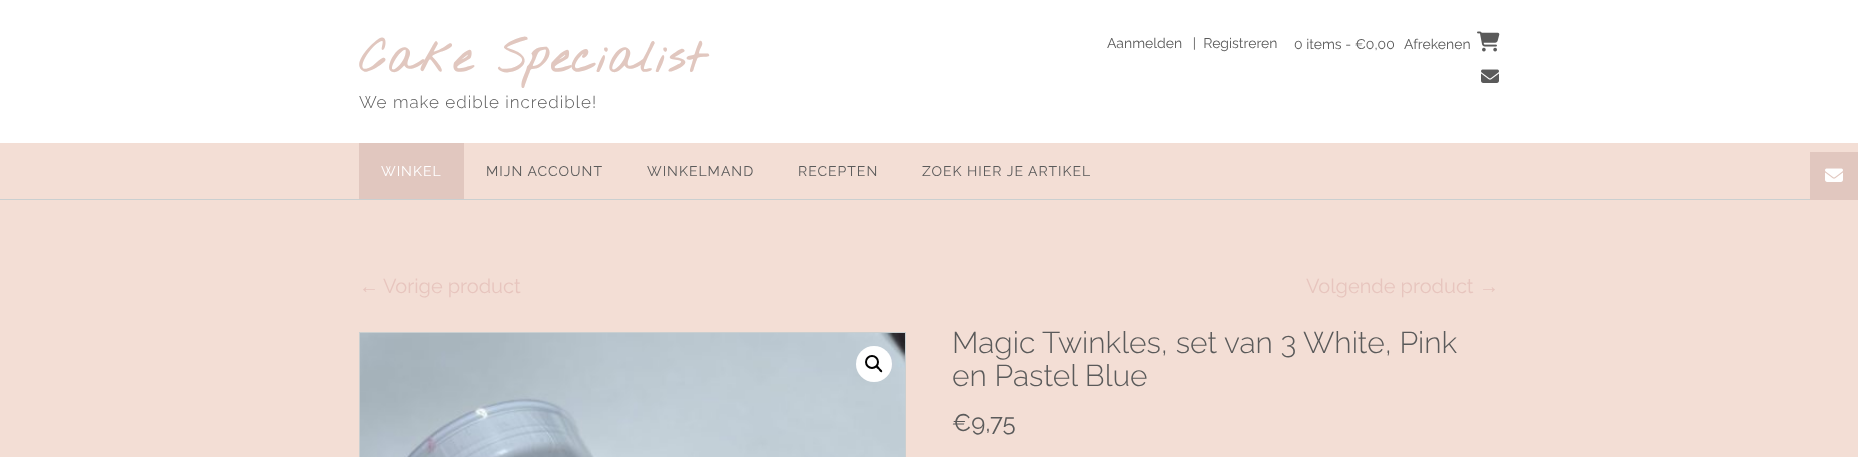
<svg xmlns="http://www.w3.org/2000/svg" width="1858" height="457" viewBox="0 0 1858 457">
  <rect width="100%" height="100%" fill="rgb(243,222,213)"/>
  <rect x="0" y="0" width="1858" height="143" fill="rgb(255,255,255)"/>
  <text x="359" y="72" font-family="Nothing You Could Do" font-size="45" font-weight="bold" letter-spacing="1" fill="rgb(225,199,191)">Cake Specialist</text>
  <text x="359" y="108" font-family="Raleway" font-size="17" font-weight="300" letter-spacing="1" fill="rgb(90,90,90)">We make edible incredible!</text>
  <g font-family="Raleway" font-size="14" fill="rgb(90,90,90)">
    <text x="1107" y="48" xml:space="preserve">Aanmelden   |  Registreren</text>
    <text x="1294" y="49">0 items - €0,00</text>
    <text x="1404" y="49">Afrekenen</text>
  </g>
  <image x="1477" y="31" width="23" height="21" href="pic1.png"/>
  <image x="1481" y="69" width="18" height="14" href="pic2.png"/>
  <rect x="0" y="199" width="1810" height="1" fill="rgb(202,207,208)"/>
  <rect x="359" y="143" width="105" height="56" fill="rgb(225,199,191)"/>
  <text x="381" y="176" font-family="Raleway" font-size="14" letter-spacing="1" fill="rgb(255,255,255)">WINKEL</text>
  <g font-family="Raleway" font-size="14" letter-spacing="1" fill="rgb(90,90,90)">
    <text x="486" y="176">MIJN ACCOUNT</text>
    <text x="647" y="176">WINKELMAND</text>
    <text x="798" y="176">RECEPTEN</text>
    <text x="922" y="176">ZOEK HIER JE ARTIKEL</text>
  </g>
  <rect x="1810" y="152" width="48" height="48" fill="rgb(225,199,191)"/>
  <image x="1825" y="168" width="18" height="14" href="pic3.png"/>
  <text x="359" y="293" font-family="Liberation Sans" font-size="20" fill="rgb(231,197,190)">←</text>
  <g font-family="Raleway" font-size="20" fill="rgb(231,197,190)">
    <text x="383" y="293">Vorige product</text>
    <text x="1306" y="293">Volgende product</text>
  </g>
  <text x="1479" y="293" font-family="Liberation Sans" font-size="20" fill="rgb(231,197,190)">→</text>
  <rect x="359.5" y="332.5" width="546" height="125" fill="none" stroke="rgb(202,207,208)"/>
  <image x="360" y="333" width="545" height="124" href="pic4.png"/>
  <circle cx="874" cy="364" r="18" fill="rgb(255,255,255)"/>
  <circle cx="872" cy="362" r="6" fill="none" stroke="rgb(0,0,0)" stroke-width="2"/>
  <path d="M876.5 366C877.5 365 879.5 367.5 880 368.5C880.5 369 883 370.5 882 372C881 373 879 370.5 878.5 369.5C878 369 875 367.5 876.5 366Z" fill="rgb(0,0,0)"/>
  <g font-family="Raleway" font-size="30" font-weight="300" fill="rgb(90,90,90)">
    <text>
      <tspan x="952" y="353">Magic Twinkles, set van 3 White, Pink</tspan>
      <tspan x="952" y="386">en Pastel Blue</tspan>
    </text>
  </g>
  <text x="952" y="431" font-family="Raleway" font-size="24" fill="rgb(90,90,90)">€9,75</text>
</svg>
